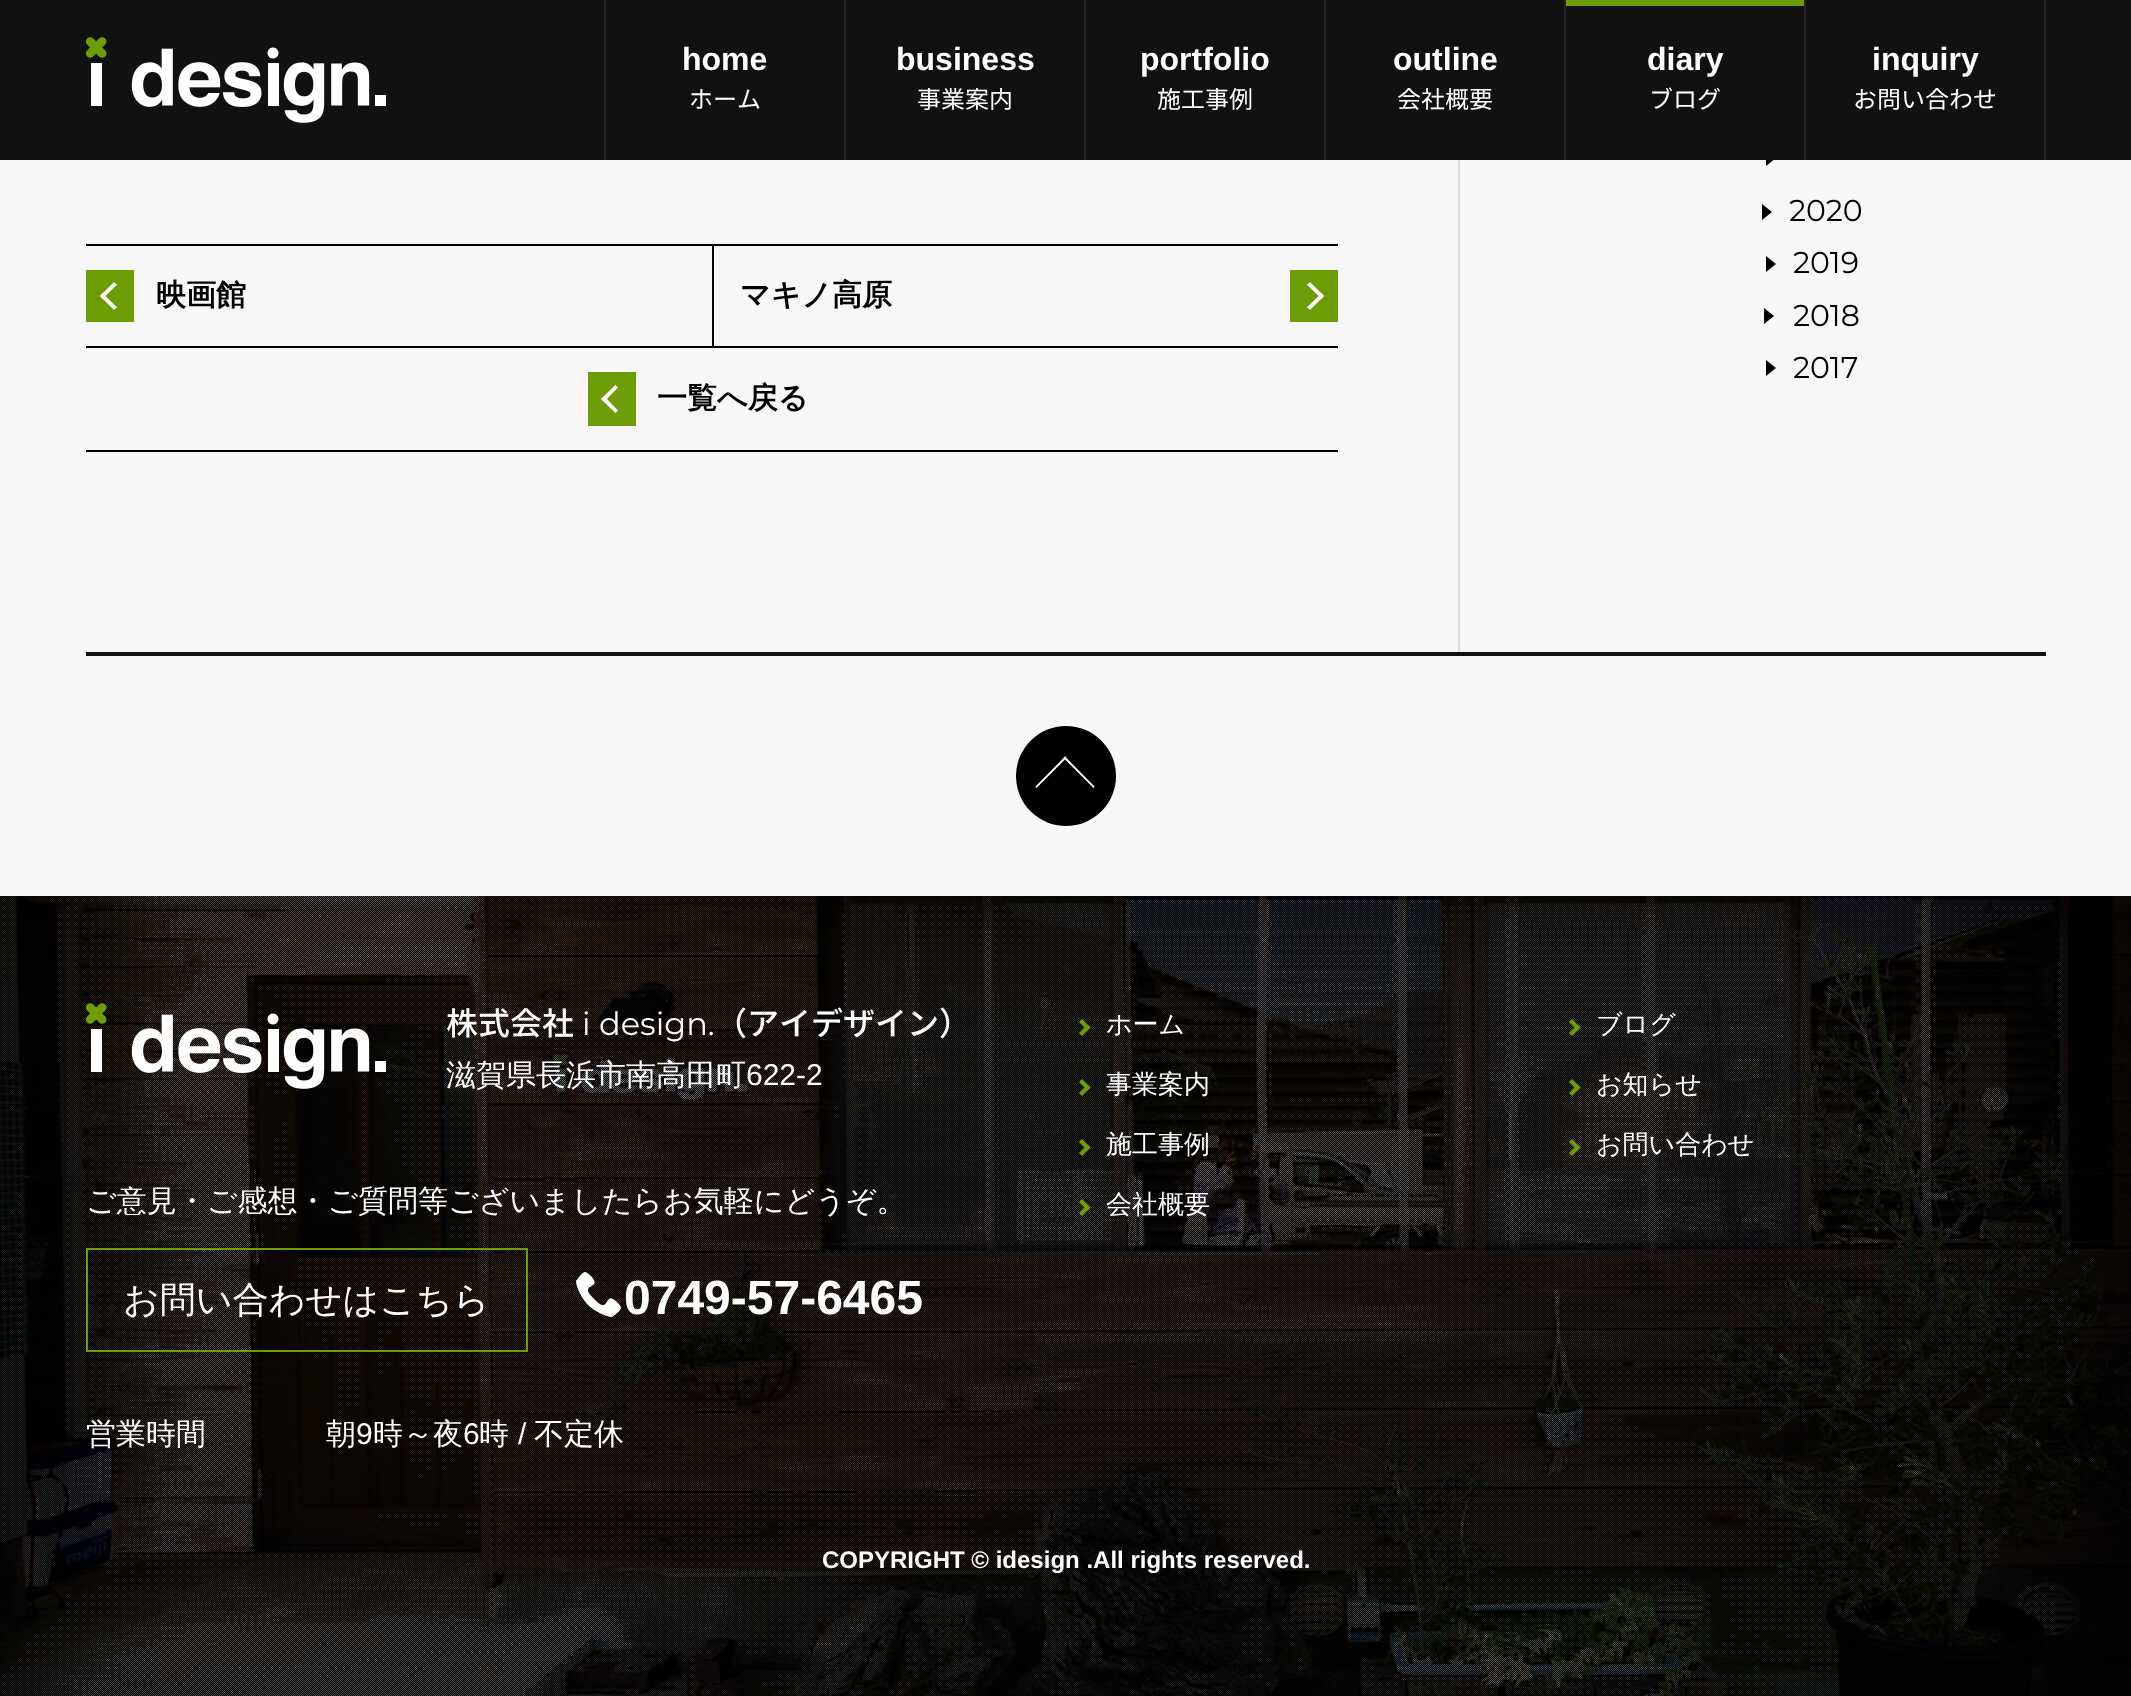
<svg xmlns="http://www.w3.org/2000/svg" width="2131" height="1696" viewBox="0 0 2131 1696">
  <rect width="100%" height="100%" fill="rgb(247,247,247)"/>
  <path d="M1766 166V150L1776 158Z" fill="rgb(0,0,0)"/>
  <rect x="0" y="0" width="2131" height="160" fill="rgb(17,17,17)"/>
  <image x="86" y="37" width="300" height="86" href="pic1.png"/>
  <rect x="2044" y="0" width="2" height="160" fill="rgb(34,34,34)"/>
  <rect x="604" y="0" width="2" height="160" fill="rgb(34,34,34)"/>
  <text x="682" y="70" font-family="Liberation Sans" font-size="32" font-weight="bold" fill="rgb(255,255,255)">home</text>
  <text x="689" y="108" font-family="Noto Sans CJK JP" font-size="24" fill="rgb(255,255,255)">ホーム</text>
  <rect x="844" y="0" width="2" height="160" fill="rgb(34,34,34)"/>
  <text x="896" y="70" font-family="Liberation Sans" font-size="32" font-weight="bold" fill="rgb(255,255,255)">business</text>
  <text x="917" y="108" font-family="Noto Sans CJK JP" font-size="24" fill="rgb(255,255,255)">事業案内</text>
  <rect x="1084" y="0" width="2" height="160" fill="rgb(34,34,34)"/>
  <text x="1140" y="70" font-family="Liberation Sans" font-size="32" font-weight="bold" fill="rgb(255,255,255)">portfolio</text>
  <text x="1157" y="108" font-family="Noto Sans CJK JP" font-size="24" fill="rgb(255,255,255)">施工事例</text>
  <rect x="1324" y="0" width="2" height="160" fill="rgb(34,34,34)"/>
  <text x="1393" y="70" font-family="Liberation Sans" font-size="32" font-weight="bold" fill="rgb(255,255,255)">outline</text>
  <text x="1397" y="108" font-family="Noto Sans CJK JP" font-size="24" fill="rgb(255,255,255)">会社概要</text>
  <rect x="1564" y="0" width="2" height="160" fill="rgb(34,34,34)"/>
  <rect x="1566" y="0" width="238" height="6" fill="rgb(110,157,8)"/>
  <text x="1647" y="70" font-family="Liberation Sans" font-size="32" font-weight="bold" fill="rgb(255,255,255)">diary</text>
  <text x="1649" y="108" font-family="Noto Sans CJK JP" font-size="24" fill="rgb(255,255,255)">ブログ</text>
  <rect x="1804" y="0" width="2" height="160" fill="rgb(34,34,34)"/>
  <text x="1872" y="70" font-family="Liberation Sans" font-size="32" font-weight="bold" fill="rgb(255,255,255)">inquiry</text>
  <text x="1853" y="108" font-family="Noto Sans CJK JP" font-size="24" fill="rgb(255,255,255)">お問い合わせ</text>
  <rect x="86" y="244" width="1252" height="2" fill="rgb(0,0,0)"/>
  <rect x="86" y="450" width="1252" height="2" fill="rgb(0,0,0)"/>
  <rect x="86" y="346" width="1252" height="2" fill="rgb(0,0,0)"/>
  <rect x="86" y="270" width="48" height="52" fill="rgb(110,157,8)"/>
  <text x="156" y="305" font-family="WenQuanYi Zen Hei" font-size="30" font-weight="bold" fill="rgb(0,0,0)">映画館</text>
  <path d="M114 310L100 296L102.5 293L117 307.5Z" fill="rgb(255,255,255)"/>
  <path d="M102.5 299L100 296L114 282L117 284.5Z" fill="rgb(255,255,255)"/>
  <rect x="712" y="246" width="2" height="100" fill="rgb(0,0,0)"/>
  <text x="740" y="305" font-family="WenQuanYi Zen Hei" font-size="30" font-weight="bold" fill="rgb(0,0,0)">マキノ高原</text>
  <rect x="1290" y="270" width="48" height="52" fill="rgb(110,157,8)"/>
  <path d="M1310 282L1324 296L1321.5 299L1307 284.5Z" fill="rgb(255,255,255)"/>
  <path d="M1321.5 293L1324 296L1310 310L1307 307.5Z" fill="rgb(255,255,255)"/>
  <rect x="588" y="372" width="48" height="54" fill="rgb(110,157,8)"/>
  <text x="657" y="408" font-family="WenQuanYi Zen Hei" font-size="30" font-weight="bold" fill="rgb(0,0,0)">一覧へ戻る</text>
  <path d="M615.5 413L601 399L604 396L618 410.5Z" fill="rgb(255,255,255)"/>
  <path d="M604 402L601 399L615.5 385L618 387.5Z" fill="rgb(255,255,255)"/>
  <rect x="1458" y="160" width="2" height="492" fill="rgb(221,221,221)"/>
  <path d="M1762 220V204L1772 212Z" fill="rgb(0,0,0)"/>
  <text x="1789" y="221" font-family="Montserrat" font-size="30" fill="rgb(0,0,0)">2020</text>
  <path d="M1766 272V256L1776 264Z" fill="rgb(0,0,0)"/>
  <text x="1793" y="273" font-family="Montserrat" font-size="30" fill="rgb(0,0,0)">2019</text>
  <path d="M1764 324V308L1774 316Z" fill="rgb(0,0,0)"/>
  <text x="1793" y="326" font-family="Montserrat" font-size="30" fill="rgb(0,0,0)">2018</text>
  <path d="M1766 376V360L1776 368Z" fill="rgb(0,0,0)"/>
  <text x="1793" y="378" font-family="Montserrat" font-size="30" fill="rgb(0,0,0)">2017</text>
  <rect x="86" y="652" width="1960" height="4" fill="rgb(17,17,17)"/>
  <circle cx="1066" cy="776" r="50" fill="rgb(0,0,0)"/>
  <path d="M1065 756.5L1094.5 786.5L1093.5 788L1063.5 758Z" fill="rgb(255,255,255)"/>
  <path d="M1065 756.5L1066.5 758L1036.5 788L1035.5 786.5Z" fill="rgb(255,255,255)"/>
  <image x="0" y="896" width="2131" height="800" href="pic2.png"/>
  <image x="86" y="1003" width="300" height="86" href="pic3.png"/>
  <text x="446" y="1035" font-family="Noto Sans CJK JP" font-size="32" font-weight="500" fill="rgb(255,255,255)">株式会社</text>
  <text x="582" y="1035" font-family="Montserrat" font-size="32" fill="rgb(255,255,255)">i design.</text>
  <text x="715" y="1035" font-family="Noto Sans CJK JP" font-size="32" font-weight="500" fill="rgb(255,255,255)">（アイデザイン）</text>
  <text x="446" y="1085" font-family="WenQuanYi Zen Hei" font-size="30" font-weight="500" fill="rgb(255,255,255)">滋賀県長浜市南高田町</text>
  <text x="746" y="1085" font-family="Liberation Sans" font-size="30" fill="rgb(255,255,255)">622-2</text>
  <text x="86" y="1211" font-family="WenQuanYi Zen Hei" font-size="30" font-weight="500" fill="rgb(255,255,255)">ご意見・ご感想・ご質問等ございましたらお気軽にどうぞ。</text>
  <rect x="87" y="1249" width="440" height="102" fill="none" stroke="rgb(110,157,8)" stroke-width="2"/>
  <text x="123" y="1312" font-family="WenQuanYi Zen Hei" font-size="36" font-weight="500" fill="rgb(255,255,255)">お問い合わせはこちら</text>
  <image x="576" y="1272" width="45" height="45" href="pic4.png"/>
  <text x="624" y="1314" font-family="Liberation Sans" font-size="48" font-weight="bold" fill="rgb(255,255,255)">0749-57-6465</text>
  <g font-family="WenQuanYi Zen Hei" font-size="30" font-weight="500" fill="rgb(255,255,255)">
    <text x="86" y="1444">営業時間</text>
    <text x="326" y="1444">朝</text>
  </g>
  <text x="356" y="1444" font-family="Liberation Sans" font-size="30" fill="rgb(255,255,255)">9</text>
  <text x="373" y="1444" font-family="WenQuanYi Zen Hei" font-size="30" font-weight="500" fill="rgb(255,255,255)">時～夜</text>
  <text x="463" y="1444" font-family="Liberation Sans" font-size="30" fill="rgb(255,255,255)">6</text>
  <text x="479" y="1444" font-family="WenQuanYi Zen Hei" font-size="30" font-weight="500" fill="rgb(255,255,255)">時</text>
  <text x="518" y="1444" font-family="Liberation Sans" font-size="30" fill="rgb(255,255,255)">/</text>
  <text x="534" y="1444" font-family="WenQuanYi Zen Hei" font-size="30" font-weight="500" fill="rgb(255,255,255)">不定休</text>
  <path d="M1082 1019L1090.5 1027.5L1087.5 1030.5L1079 1022Z" fill="rgb(110,157,8)"/>
  <path d="M1087.5 1024.5L1090.5 1027.5L1082 1036L1079 1033Z" fill="rgb(110,157,8)"/>
  <text x="1106" y="1033" font-family="WenQuanYi Zen Hei" font-size="26" font-weight="500" fill="rgb(255,255,255)">ホーム</text>
  <path d="M1082 1079L1090.5 1087.5L1087.5 1090.5L1079 1082Z" fill="rgb(110,157,8)"/>
  <path d="M1087.5 1084.5L1090.5 1087.5L1082 1096L1079 1093Z" fill="rgb(110,157,8)"/>
  <text x="1106" y="1093" font-family="WenQuanYi Zen Hei" font-size="26" font-weight="500" fill="rgb(255,255,255)">事業案内</text>
  <path d="M1082 1139L1090.5 1147.5L1087.5 1150.5L1079 1142Z" fill="rgb(110,157,8)"/>
  <path d="M1087.5 1144.5L1090.5 1147.5L1082 1156L1079 1153Z" fill="rgb(110,157,8)"/>
  <text x="1106" y="1153" font-family="WenQuanYi Zen Hei" font-size="26" font-weight="500" fill="rgb(255,255,255)">施工事例</text>
  <path d="M1082 1199L1090.5 1207.5L1087.5 1210.5L1079 1202Z" fill="rgb(110,157,8)"/>
  <path d="M1087.5 1204.5L1090.5 1207.5L1082 1216L1079 1213Z" fill="rgb(110,157,8)"/>
  <text x="1106" y="1213" font-family="WenQuanYi Zen Hei" font-size="26" font-weight="500" fill="rgb(255,255,255)">会社概要</text>
  <path d="M1572 1019L1580.5 1027.5L1577.5 1030.5L1569 1022Z" fill="rgb(110,157,8)"/>
  <path d="M1577.5 1024.5L1580.5 1027.5L1572 1036L1569 1033Z" fill="rgb(110,157,8)"/>
  <text x="1596" y="1033" font-family="WenQuanYi Zen Hei" font-size="26" font-weight="500" fill="rgb(255,255,255)">ブログ</text>
  <path d="M1572 1079L1580.5 1087.5L1577.5 1090.5L1569 1082Z" fill="rgb(110,157,8)"/>
  <path d="M1577.5 1084.5L1580.5 1087.5L1572 1096L1569 1093Z" fill="rgb(110,157,8)"/>
  <text x="1596" y="1093" font-family="WenQuanYi Zen Hei" font-size="26" font-weight="500" fill="rgb(255,255,255)">お知らせ</text>
  <path d="M1572 1139L1580.5 1147.5L1577.5 1150.5L1569 1142Z" fill="rgb(110,157,8)"/>
  <path d="M1577.5 1144.5L1580.5 1147.5L1572 1156L1569 1153Z" fill="rgb(110,157,8)"/>
  <text x="1596" y="1153" font-family="WenQuanYi Zen Hei" font-size="26" font-weight="500" fill="rgb(255,255,255)">お問い合わせ</text>
  <text x="822" y="1568" font-family="Liberation Sans" font-size="24" font-weight="bold" fill="rgb(255,255,255)">COPYRIGHT © idesign .All rights reserved.</text>
</svg>
